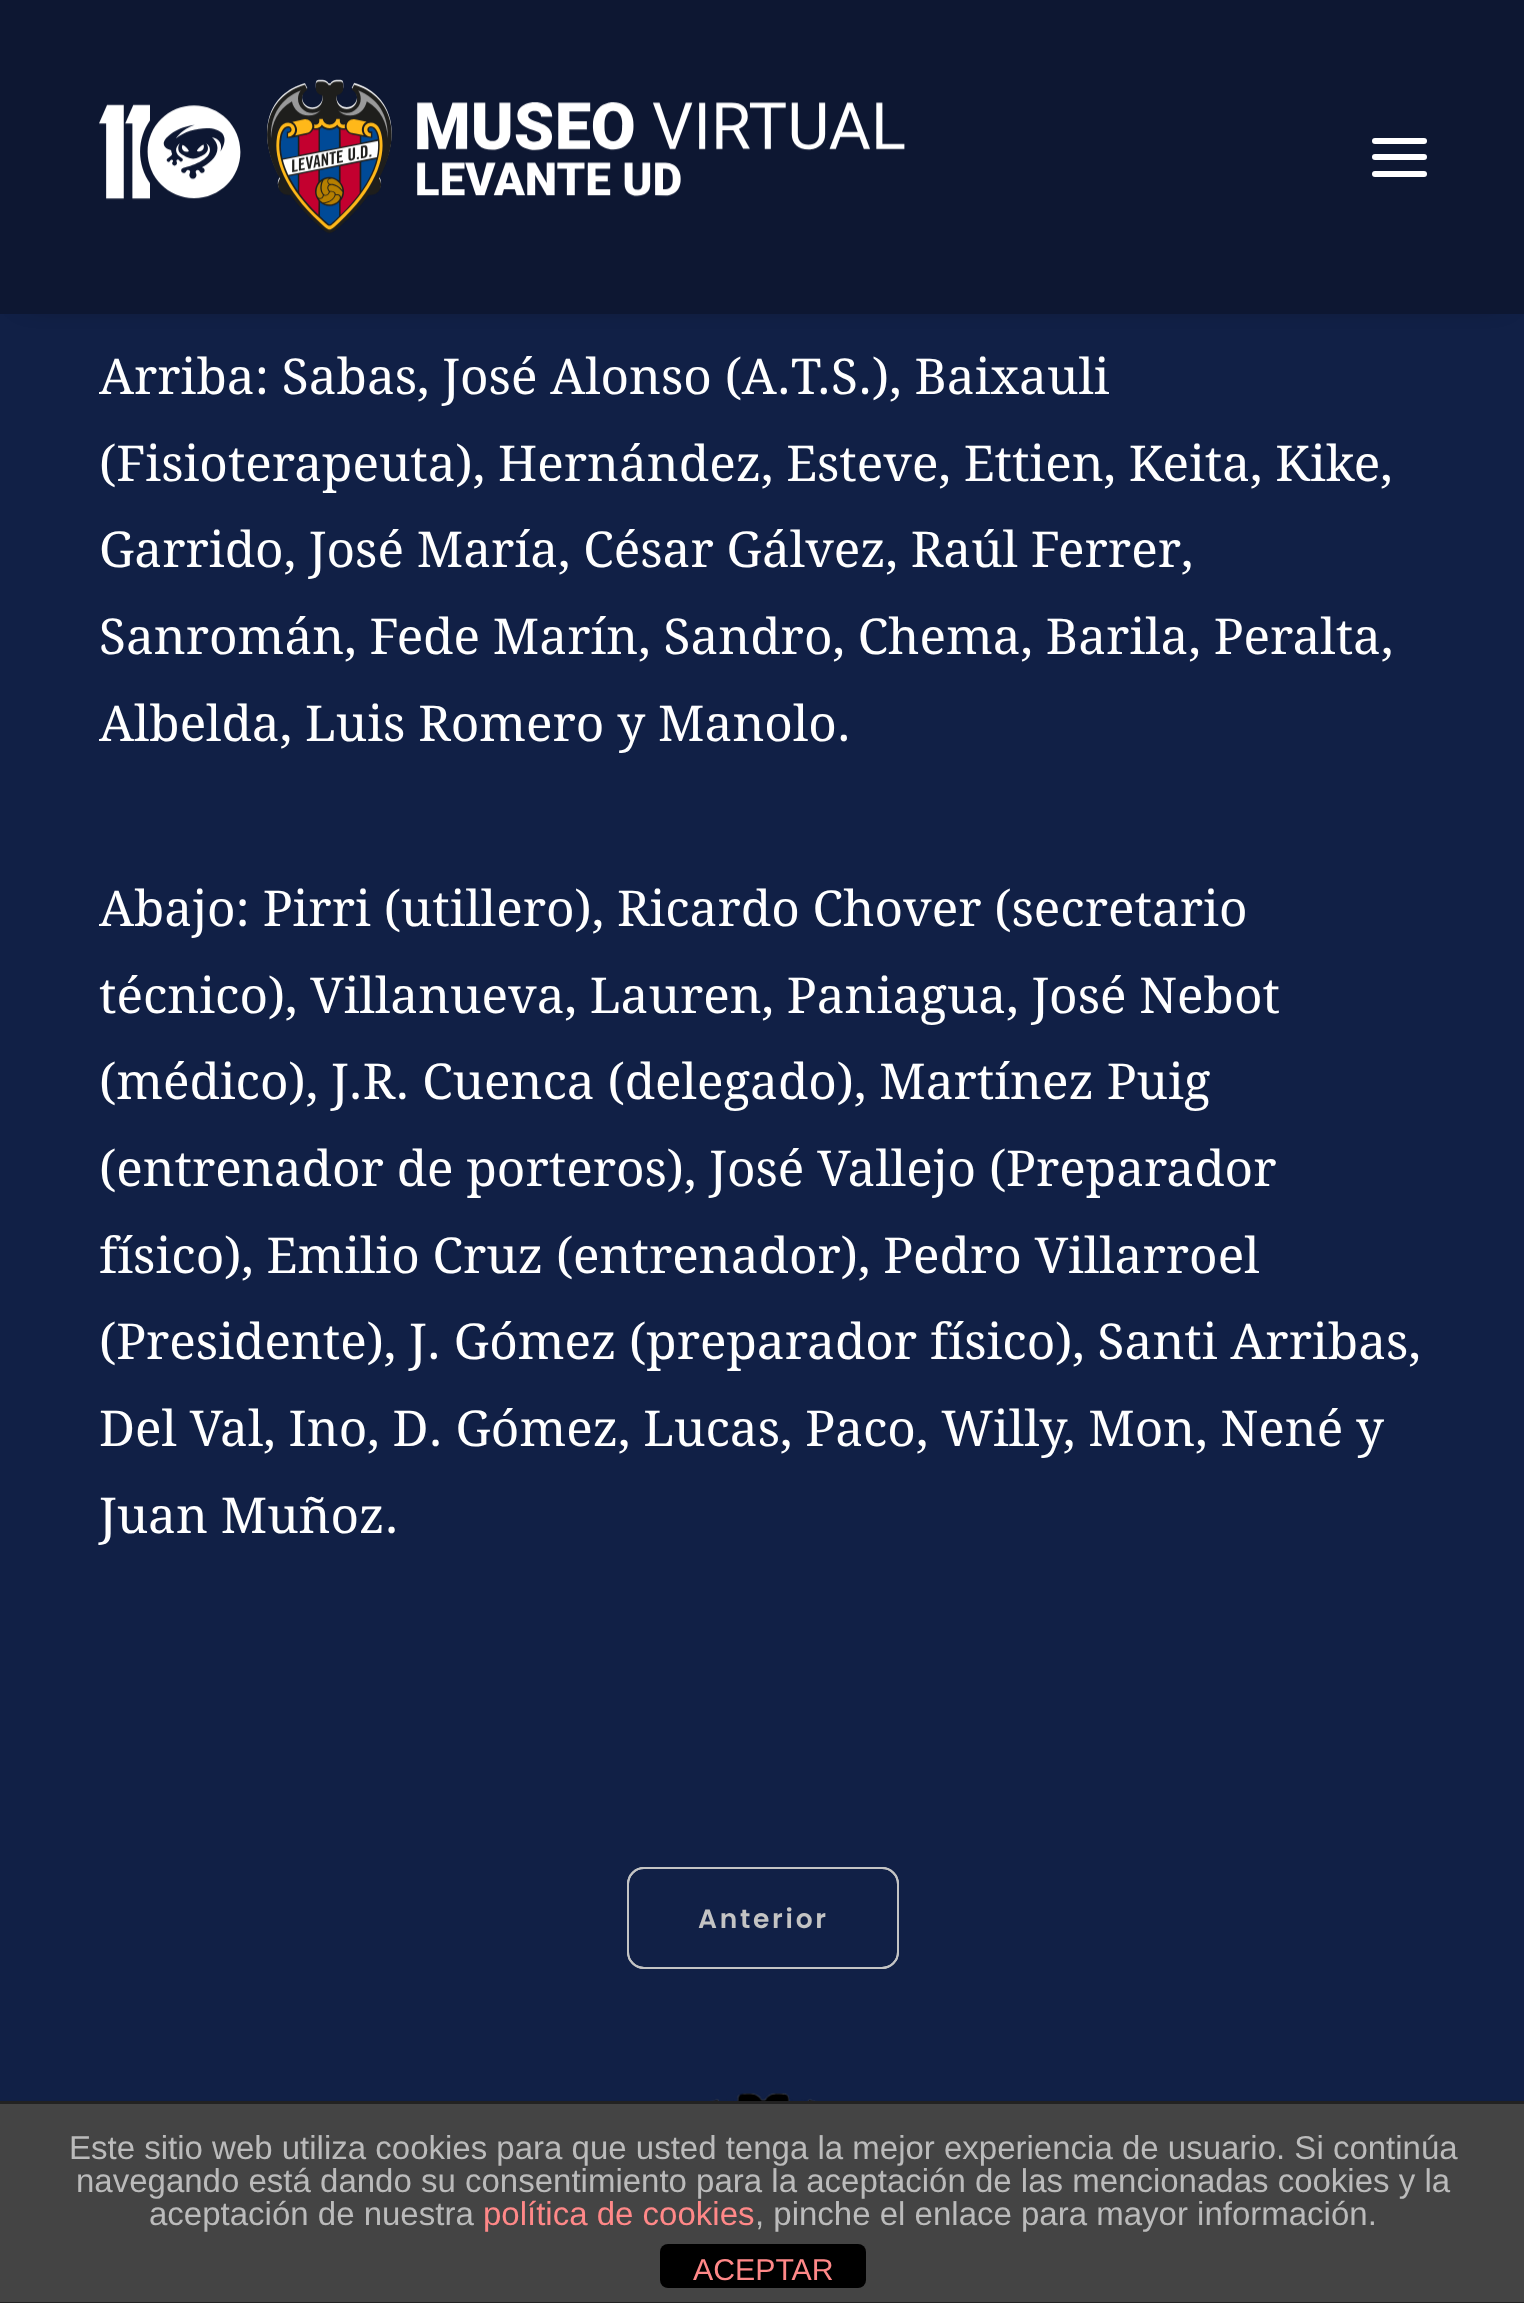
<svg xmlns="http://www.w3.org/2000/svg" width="1524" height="2303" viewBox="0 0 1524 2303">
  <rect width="100%" height="100%" fill="rgb(17,32,70)"/>
  <rect x="28" y="39" width="1471" height="258" fill="rgba(0,0,0,0.6)" filter="blur(14px)"/>
  <rect x="0" y="0" width="1524" height="314" fill="rgb(13,23,50)"/>
  <image x="99" y="79" width="806" height="155" href="pic1.png"/>
  <rect x="1372" y="154" width="55" height="6" rx="3" fill="rgb(255,255,255)"/>
  <rect x="1372" y="138" width="55" height="6" rx="3" fill="rgb(255,255,255)"/>
  <rect x="1372" y="171" width="55" height="6" rx="3" fill="rgb(255,255,255)"/>
  <g font-family="Droid Serif" font-size="49.5" fill="rgb(255,255,255)">
    <text>
      <tspan x="99" y="394">Arriba: Sabas, José Alonso (A.T.S.), Baixauli</tspan>
      <tspan x="99" y="481">(Fisioterapeuta), Hernández, Esteve, Ettien, Keita, Kike,</tspan>
      <tspan x="99" y="567">Garrido, José María, César Gálvez, Raúl Ferrer,</tspan>
      <tspan x="99" y="654">Sanromán, Fede Marín, Sandro, Chema, Barila, Peralta,</tspan>
      <tspan x="99" y="741">Albelda, Luis Romero y Manolo.</tspan>
    </text>
    <text>
      <tspan x="99" y="926">Abajo: Pirri (utillero), Ricardo Chover (secretario</tspan>
      <tspan x="99" y="1013">técnico), Villanueva, Lauren, Paniagua, José Nebot</tspan>
      <tspan x="99" y="1099">(médico), J.R. Cuenca (delegado), Martínez Puig</tspan>
      <tspan x="99" y="1186">(entrenador de porteros), José Vallejo (Preparador</tspan>
      <tspan x="99" y="1273">físico), Emilio Cruz (entrenador), Pedro Villarroel</tspan>
      <tspan x="99" y="1359">(Presidente), J. Gómez (preparador físico), Santi Arribas,</tspan>
      <tspan x="99" y="1446">Del Val, Ino, D. Gómez, Lucas, Paco, Willy, Mon, Nené y</tspan>
      <tspan x="99" y="1533">Juan Muñoz.</tspan>
    </text>
  </g>
  <rect x="628" y="1868" width="270" height="100" rx="16" fill="none" stroke="rgb(196,196,196)" stroke-width="2"/>
  <rect x="628" y="1868" width="270" height="100" rx="16" fill="none" stroke="rgb(196,196,196)" stroke-width="2"/>
  <text x="698" y="1928" font-family="Poppins" font-size="26.5" font-weight="600" letter-spacing="2.75" fill="rgb(196,196,196)">Anterior</text>
  <image x="710" y="2093" width="107" height="8" href="pic2.png"/>
  <rect x="0" y="2104" width="1524" height="198" fill="rgb(68,68,68)"/>
  <rect x="0" y="2101" width="1524" height="3" fill="rgb(34,34,34)"/>
  <rect x="0" y="2302" width="1524" height="1" fill="rgb(34,34,34)"/>
  <g font-family="Liberation Sans" font-size="33" fill="rgb(187,187,187)">
    <text x="69" y="2159">Este sitio web utiliza cookies para que usted tenga la mejor experiencia de usuario. Si continúa</text>
    <text x="76" y="2192">navegando está dando su consentimiento para la aceptación de las mencionadas cookies y la</text>
    <text x="149" y="2225">aceptación de nuestra</text>
  </g>
  <text x="483" y="2225" font-family="Liberation Sans" font-size="33" fill="rgb(255,136,136)">política de cookies</text>
  <text x="755" y="2225" font-family="Liberation Sans" font-size="33" fill="rgb(187,187,187)">, pinche el enlace para mayor información.</text>
  <rect x="660" y="2244" width="206" height="44" rx="8" fill="rgb(0,0,0)"/>
  <text x="693" y="2280" font-family="Liberation Sans" font-size="30.25" fill="rgb(255,136,136)">ACEPTAR</text>
</svg>
